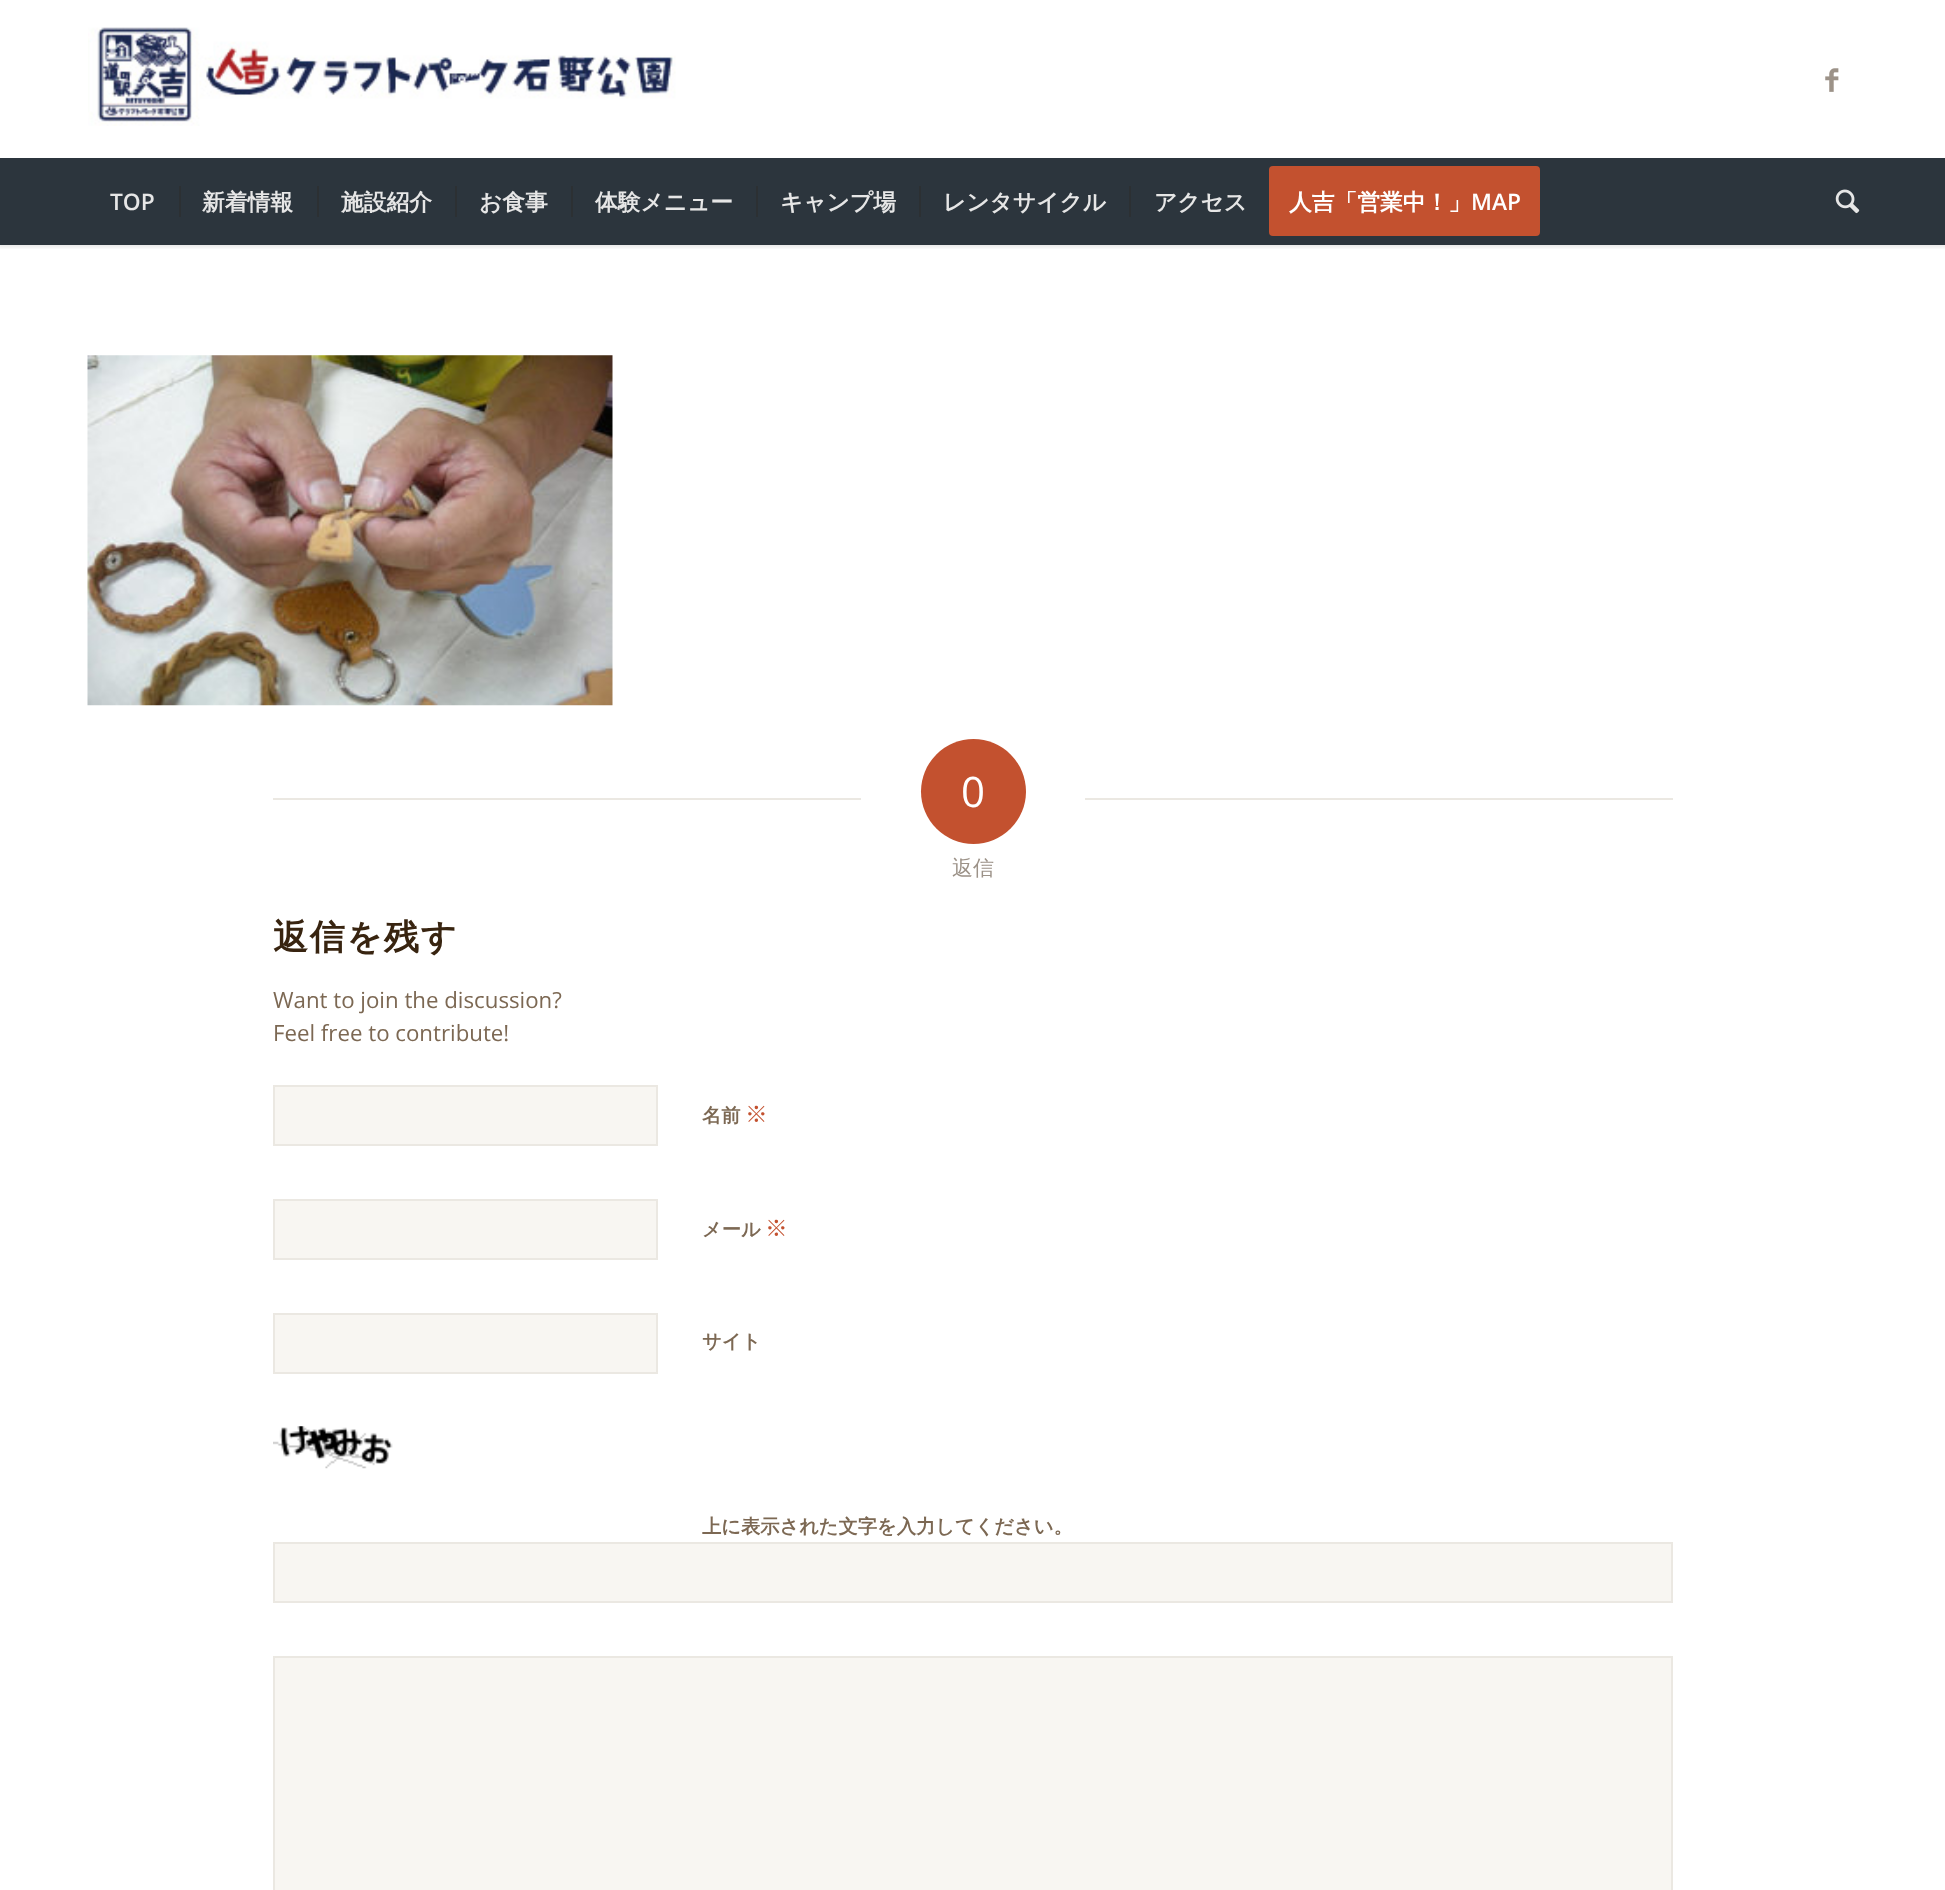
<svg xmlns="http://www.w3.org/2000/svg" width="1945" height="1890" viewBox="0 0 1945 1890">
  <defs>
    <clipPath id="clip1"><rect x="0" y="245" width="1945" height="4"/></clipPath>
  </defs>
  <rect width="100%" height="100%" fill="rgb(255,255,255)"/>
  <g clip-path="url(#clip1)">
    <rect x="-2" y="-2" width="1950" height="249" fill="rgba(0,0,0,0.1)" filter="blur(2px)"/>
  </g>
  <image x="88" y="27" width="588" height="99" href="pic1.png"/>
  <image x="1825" y="68" width="14" height="24" href="pic2.png"/>
  <rect x="0" y="158" width="1945" height="87" fill="rgb(44,53,61)"/>
  <text x="110" y="210" font-family="Open Sans" font-size="22.75" font-weight="600" fill="rgb(230,230,230)">TOP</text>
  <text x="202" y="210" font-family="WenQuanYi Zen Hei" font-size="22.75" font-weight="bold" fill="rgb(230,230,230)">新着情報</text>
  <rect x="179" y="186" width="2" height="31" fill="rgb(44,48,51)"/>
  <text x="341" y="210" font-family="WenQuanYi Zen Hei" font-size="22.75" font-weight="bold" fill="rgb(230,230,230)">施設紹介</text>
  <rect x="317" y="186" width="2" height="31" fill="rgb(44,48,51)"/>
  <text x="479" y="210" font-family="WenQuanYi Zen Hei" font-size="22.75" font-weight="bold" fill="rgb(230,230,230)">お食事</text>
  <rect x="455" y="186" width="2" height="31" fill="rgb(44,48,51)"/>
  <text x="595" y="210" font-family="WenQuanYi Zen Hei" font-size="22.75" font-weight="bold" fill="rgb(230,230,230)">体験メニュー</text>
  <rect x="571" y="186" width="2" height="31" fill="rgb(44,48,51)"/>
  <text x="780" y="210" font-family="WenQuanYi Zen Hei" font-size="22.75" font-weight="bold" fill="rgb(230,230,230)">キャンプ場</text>
  <rect x="756" y="186" width="2" height="31" fill="rgb(44,48,51)"/>
  <text x="943" y="210" font-family="WenQuanYi Zen Hei" font-size="22.75" font-weight="bold" fill="rgb(230,230,230)">レンタサイクル</text>
  <rect x="919" y="186" width="2" height="31" fill="rgb(44,48,51)"/>
  <text x="1154" y="210" font-family="WenQuanYi Zen Hei" font-size="22.75" font-weight="bold" fill="rgb(230,230,230)">アクセス</text>
  <rect x="1129" y="186" width="2" height="31" fill="rgb(44,48,51)"/>
  <rect x="1271" y="168" width="267" height="66" rx="2" fill="rgb(195,81,47)" stroke="rgb(195,81,47)" stroke-width="4"/>
  <text x="1289" y="210" font-family="WenQuanYi Zen Hei" font-size="22.75" font-weight="bold" fill="rgb(255,255,255)">人吉「営業中！」</text>
  <text x="1471" y="210" font-family="Open Sans" font-size="22.75" font-weight="600" fill="rgb(255,255,255)">MAP</text>
  <image x="1835" y="189" width="25" height="25" href="pic3.png"/>
  <image x="87" y="355" width="526" height="351" href="pic4.png"/>
  <rect x="273" y="798" width="588" height="2" fill="rgb(235,232,226)"/>
  <circle cx="973.5" cy="791.5" r="52.5" fill="rgb(195,81,47)"/>
  <text x="961" y="807" font-family="Open Sans" font-size="42" fill="rgb(255,255,255)">0</text>
  <rect x="1085" y="798" width="588" height="2" fill="rgb(235,232,226)"/>
  <text x="952" y="875" font-family="WenQuanYi Zen Hei" font-size="21" font-weight="500" fill="rgb(156,146,136)">返信</text>
  <text x="273" y="949" font-family="WenQuanYi Zen Hei" font-size="35" font-weight="bold" letter-spacing="1.75" fill="rgb(56,36,16)">返信を残す</text>
  <g font-family="Open Sans" font-size="22.25" fill="rgb(124,104,83)">
    <text>
      <tspan x="273" y="1008">Want to join the discussion?</tspan>
      <tspan x="273" y="1041">Feel free to contribute!</tspan>
    </text>
  </g>
  <rect x="274" y="1086" width="383" height="59" fill="rgb(248,246,242)" stroke="rgb(235,232,226)" stroke-width="2"/>
  <text x="702" y="1122" font-family="WenQuanYi Zen Hei" font-size="19.25" font-weight="bold" fill="rgb(124,104,83)">名前</text>
  <text x="745" y="1122" font-family="WenQuanYi Zen Hei" font-size="22.75" font-weight="500" fill="rgb(195,81,47)">※</text>
  <rect x="274" y="1200" width="383" height="59" fill="rgb(248,246,242)" stroke="rgb(235,232,226)" stroke-width="2"/>
  <text x="702" y="1236" font-family="WenQuanYi Zen Hei" font-size="19.25" font-weight="bold" fill="rgb(124,104,83)">メール</text>
  <text x="765" y="1236" font-family="WenQuanYi Zen Hei" font-size="22.75" font-weight="500" fill="rgb(195,81,47)">※</text>
  <rect x="274" y="1314" width="383" height="59" fill="rgb(248,246,242)" stroke="rgb(235,232,226)" stroke-width="2"/>
  <text x="702" y="1348" font-family="WenQuanYi Zen Hei" font-size="19.25" font-weight="bold" fill="rgb(124,104,83)">サイト</text>
  <image x="273" y="1426" width="120" height="43" href="pic5.png"/>
  <text x="702" y="1533" font-family="WenQuanYi Zen Hei" font-size="19.25" font-weight="bold" fill="rgb(124,104,83)">上に表示された文字を入力してください。</text>
  <rect x="274" y="1543" width="1398" height="59" fill="rgb(248,246,242)" stroke="rgb(235,232,226)" stroke-width="2"/>
  <rect x="274" y="1657" width="1398" height="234" fill="rgb(248,246,242)" stroke="rgb(235,232,226)" stroke-width="2"/>
</svg>
